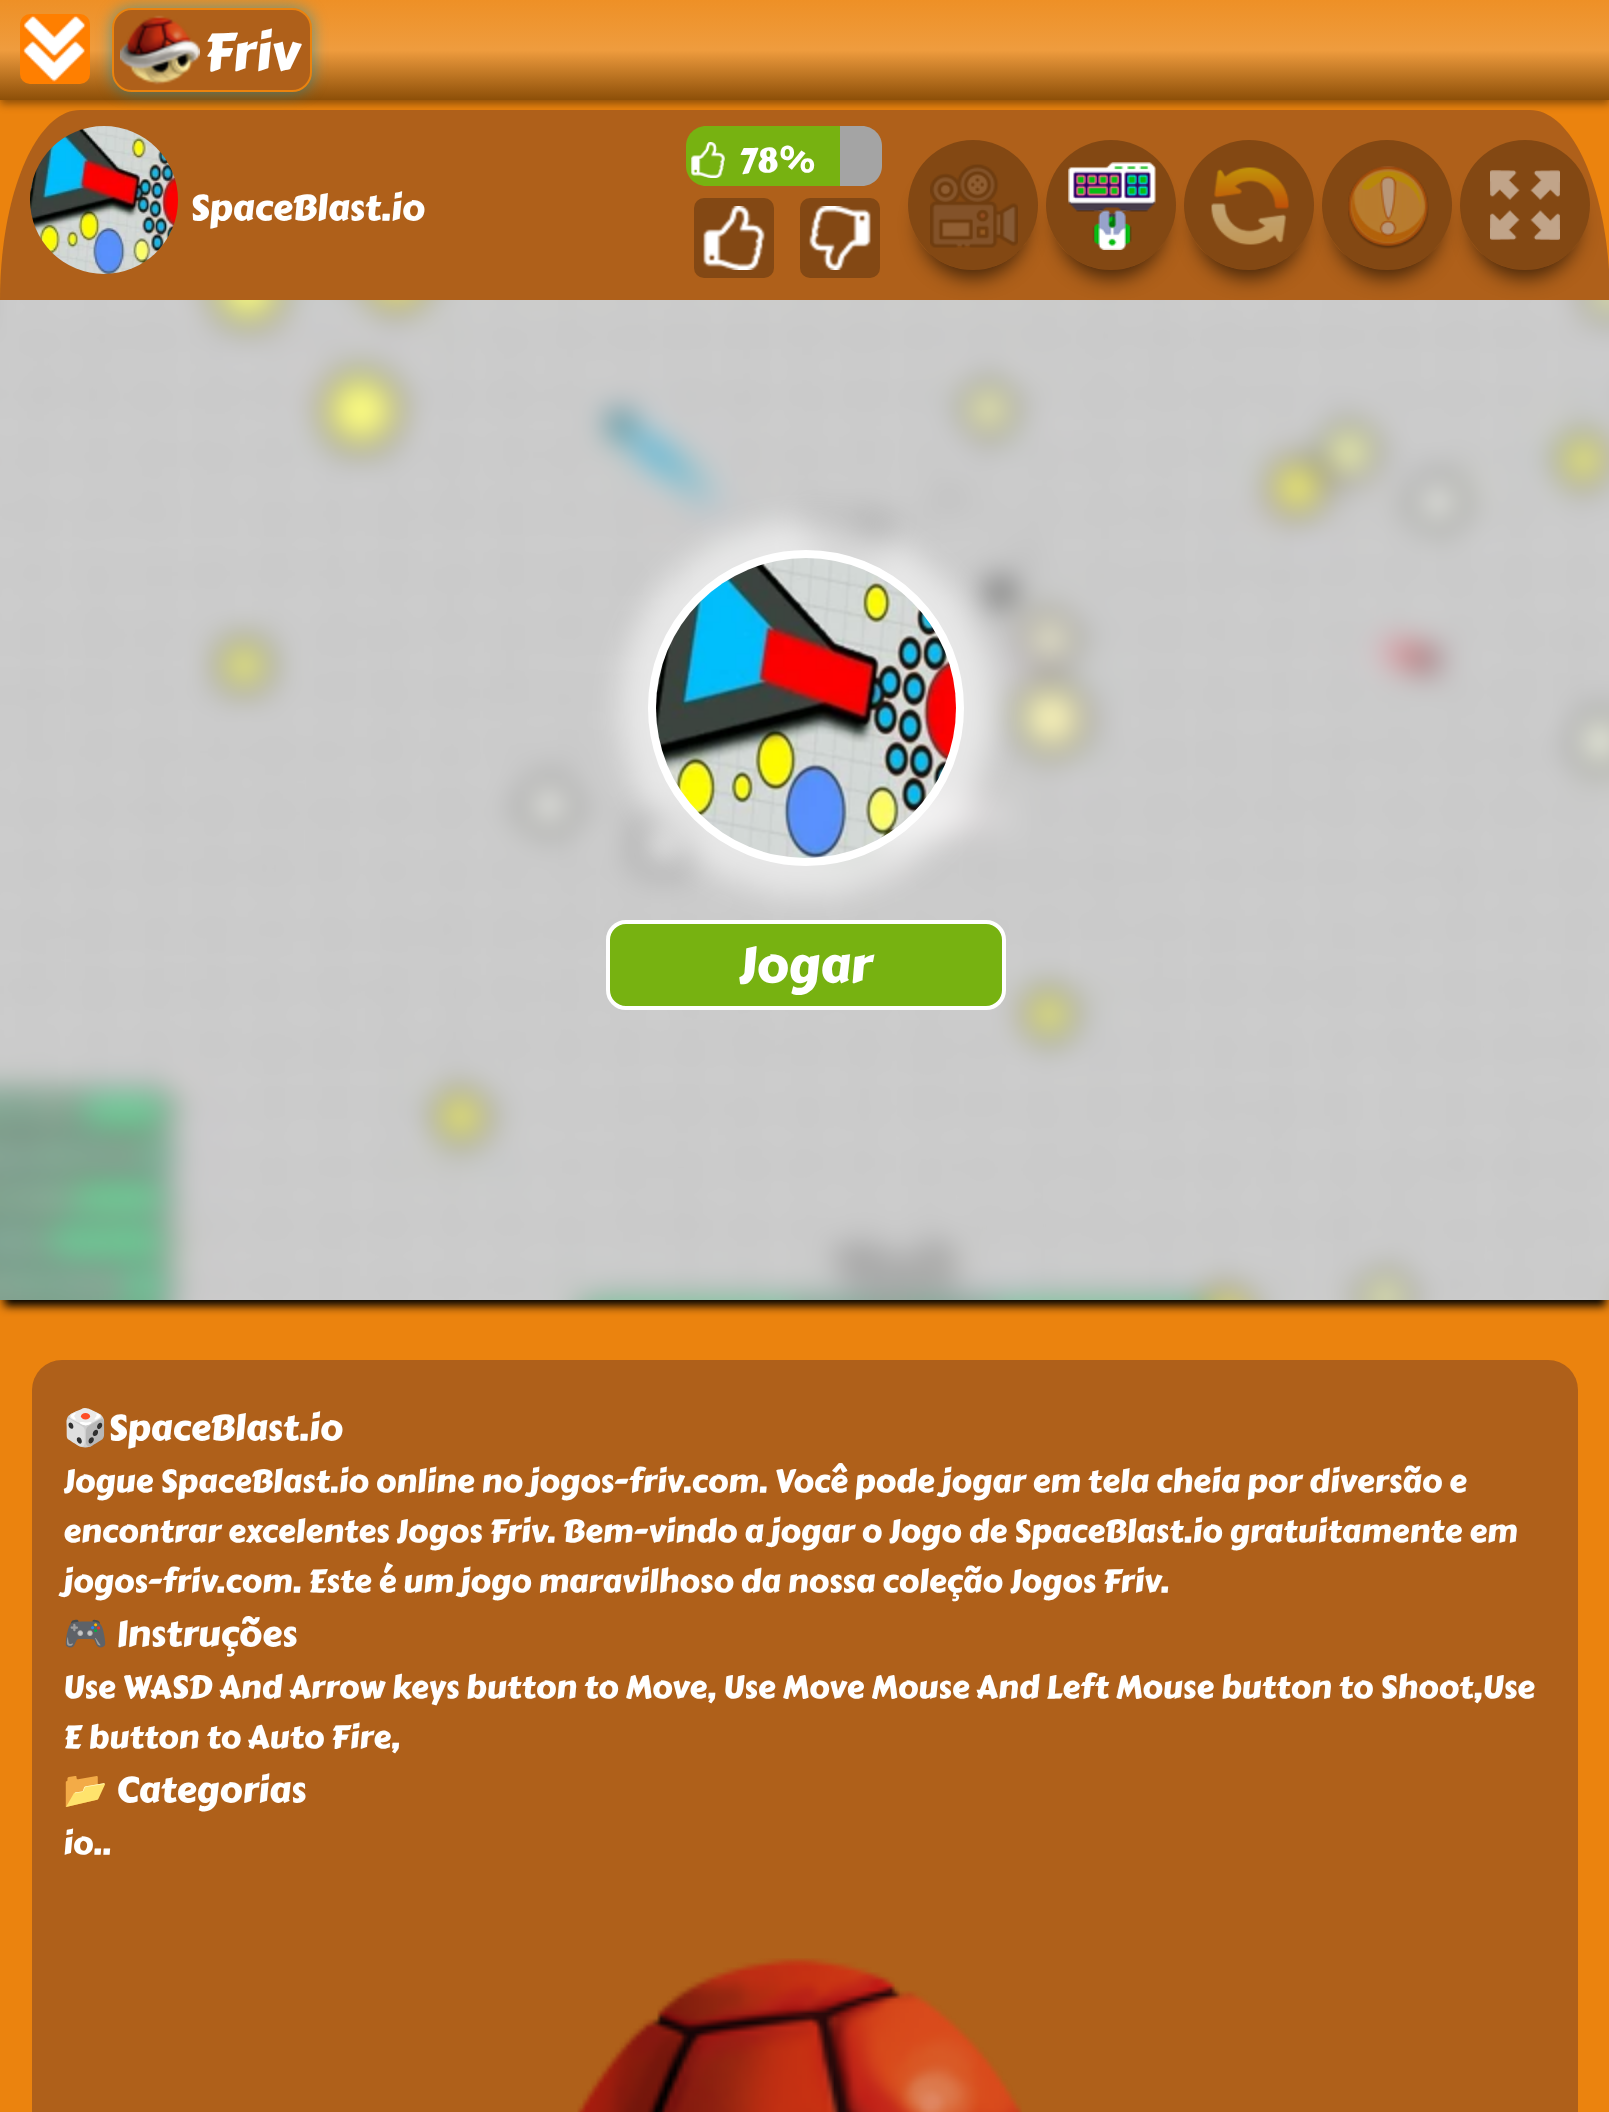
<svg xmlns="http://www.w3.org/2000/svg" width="1609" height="2112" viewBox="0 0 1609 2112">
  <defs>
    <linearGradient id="g1" gradientUnits="userSpaceOnUse" x1="805" y1="0" x2="805" y2="100"><stop offset="0" stop-color="rgb(238,144,38)"/><stop offset="0.5" stop-color="rgb(239,156,62)"/><stop offset="1" stop-color="rgb(141,79,8)"/></linearGradient>
    <clipPath id="clip1"><path d="M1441 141H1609V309H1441ZM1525 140C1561 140 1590 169 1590 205C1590 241 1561 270 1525 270C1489 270 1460 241 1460 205C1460 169 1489 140 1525 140Z" clip-rule="evenodd"/></clipPath>
    <clipPath id="clip2"><path d="M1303 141H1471V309H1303ZM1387 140C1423 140 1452 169 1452 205C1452 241 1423 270 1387 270C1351 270 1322 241 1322 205C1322 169 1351 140 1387 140Z" clip-rule="evenodd"/></clipPath>
    <clipPath id="clip3"><path d="M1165 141H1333V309H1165ZM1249 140C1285 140 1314 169 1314 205C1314 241 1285 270 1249 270C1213 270 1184 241 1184 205C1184 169 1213 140 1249 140Z" clip-rule="evenodd"/></clipPath>
    <clipPath id="clip4"><path d="M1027 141H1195V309H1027ZM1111 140C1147 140 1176 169 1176 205C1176 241 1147 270 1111 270C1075 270 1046 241 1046 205C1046 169 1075 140 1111 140Z" clip-rule="evenodd"/></clipPath>
    <clipPath id="clip5"><path d="M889 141H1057V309H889ZM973 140C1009 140 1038 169 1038 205C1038 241 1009 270 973 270C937 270 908 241 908 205C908 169 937 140 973 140Z" clip-rule="evenodd"/></clipPath>
  </defs>
  <rect width="100%" height="100%" fill="rgb(235,131,14)"/>
  <rect x="0" y="4" width="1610" height="100" fill="rgba(0,0,0,0.4)" filter="blur(4px)"/>
  <rect x="0" y="0" width="1609" height="100" fill="url(#g1)"/>
  <image x="20" y="14" width="70" height="70" href="pic1.png"/>
  <rect x="112" y="8" width="200" height="84" rx="20" fill="rgba(0,146,191,0.6)" filter="blur(8px)"/>
  <rect x="113" y="9" width="198" height="82" rx="19" fill="rgb(175,96,26)" stroke="rgb(235,131,14)" stroke-width="2"/>
  <image x="120" y="15" width="80" height="70" href="pic2.png"/>
  <text x="204" y="70" font-family="Carter One" font-size="52" fill="rgb(255,255,255)">Friv</text>
  <path d="M80 110H1530C1574 110 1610 195 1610 300H0C0 195 36 110 80 110Z" fill="rgb(175,96,26)"/>
  <image x="30" y="126" width="148" height="148" href="pic3.png"/>
  <path d="M706 126H840V186H706C695 186 686 177 686 166V146C686 135 695 126 706 126Z" fill="rgb(119,178,17)"/>
  <image x="691" y="142" width="34" height="36" href="pic4.png"/>
  <text x="739" y="172" font-family="Carter One" font-size="34" fill="rgb(255,255,255)">78%</text>
  <path d="M840 126H862C873 126 882 135 882 146V166C882 177 873 186 862 186H840Z" fill="rgb(164,164,164)"/>
  <rect x="694" y="198" width="80" height="80" rx="10" fill="rgb(131,72,20)"/>
  <image x="703" y="206" width="62" height="64" href="pic5.png"/>
  <rect x="800" y="198" width="80" height="80" rx="10" fill="rgb(131,72,20)"/>
  <image x="809" y="206" width="62" height="64" href="pic6.png"/>
  <g clip-path="url(#clip1)">
    <rect x="1472" y="172" width="106" height="106" rx="53" fill="rgba(0,0,0,0.6)" filter="blur(10px)"/>
  </g>
  <circle cx="1525" cy="205" r="65" fill="rgba(0,0,0,0.25)"/>
  <g clip-path="url(#clip2)">
    <rect x="1334" y="172" width="106" height="106" rx="53" fill="rgba(0,0,0,0.6)" filter="blur(10px)"/>
  </g>
  <circle cx="1387" cy="205" r="65" fill="rgba(0,0,0,0.25)"/>
  <g clip-path="url(#clip3)">
    <rect x="1196" y="172" width="106" height="106" rx="53" fill="rgba(0,0,0,0.6)" filter="blur(10px)"/>
  </g>
  <circle cx="1249" cy="205" r="65" fill="rgba(0,0,0,0.25)"/>
  <g clip-path="url(#clip4)">
    <rect x="1058" y="172" width="106" height="106" rx="53" fill="rgba(0,0,0,0.6)" filter="blur(10px)"/>
  </g>
  <circle cx="1111" cy="205" r="65" fill="rgba(0,0,0,0.25)"/>
  <g clip-path="url(#clip5)">
    <rect x="920" y="172" width="106" height="106" rx="53" fill="rgba(0,0,0,0.6)" filter="blur(10px)"/>
  </g>
  <circle cx="973" cy="205" r="65" fill="rgba(0,0,0,0.25)"/>
  <image x="930" y="164" width="88" height="84" href="pic7.png"/>
  <image x="1068" y="162" width="88" height="88" href="pic8.png"/>
  <image x="1211" y="167" width="78" height="78" href="pic9.png"/>
  <image x="1348" y="166" width="81" height="83" href="pic10.png"/>
  <image x="1490" y="170" width="70" height="70" href="pic11.png"/>
  <text x="190" y="220" font-family="Carter One" font-size="36" fill="rgb(255,255,255)">SpaceBlast.io</text>
  <rect x="4" y="314" width="1602" height="992" fill="rgb(0,0,0)" filter="blur(5px)"/>
  <image x="0" y="300" width="1609" height="1000" href="pic12.png"/>
  <rect x="618" y="520" width="376" height="376" rx="188" fill="rgba(255,255,255,0.55)" filter="blur(15px)"/>
  <circle cx="806" cy="708" r="154" fill="rgb(255,255,255)" stroke="rgb(255,255,255)" stroke-width="8"/>
  <image x="656" y="558" width="300" height="300" href="pic13.png"/>
  <rect x="608" y="922" width="396" height="86" rx="18" fill="rgb(119,178,17)" stroke="rgb(255,255,255)" stroke-width="4"/>
  <text x="738" y="982" font-family="Carter One" font-size="50" fill="rgb(255,255,255)">Jogar</text>
  <rect x="32" y="1360" width="1546" height="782" rx="30" fill="rgb(175,96,26)"/>
  <text x="63" y="1440" font-family="Noto Color Emoji" font-size="36" fill="rgb(255,255,255)">🎲</text>
  <text x="108" y="1440" font-family="Carter One" font-size="36" fill="rgb(255,255,255)">SpaceBlast.io</text>
  <g font-family="Carter One" font-size="32" fill="rgb(255,255,255)">
    <text>
      <tspan x="63" y="1492">Jogue SpaceBlast.io online no jogos-friv.com. Você pode jogar em tela cheia por diversão e</tspan>
      <tspan x="63" y="1542">encontrar excelentes Jogos Friv. Bem-vindo a jogar o Jogo de SpaceBlast.io gratuitamente em</tspan>
      <tspan x="63" y="1592">jogos-friv.com. Este é um jogo maravilhoso da nossa coleção Jogos Friv.</tspan>
    </text>
  </g>
  <text x="63" y="1646" font-family="Noto Color Emoji" font-size="36" fill="rgb(255,255,255)">🎮</text>
  <text x="116" y="1646" font-family="Carter One" font-size="36" fill="rgb(255,255,255)">Instruções</text>
  <g font-family="Carter One" font-size="32" fill="rgb(255,255,255)">
    <text>
      <tspan x="63" y="1698">Use WASD And Arrow keys button to Move, Use Move Mouse And Left Mouse button to Shoot,Use</tspan>
      <tspan x="63" y="1748">E button to Auto Fire,</tspan>
    </text>
  </g>
  <text x="63" y="1802" font-family="Noto Color Emoji" font-size="36" fill="rgb(255,255,255)">📂</text>
  <text x="116" y="1802" font-family="Carter One" font-size="36" fill="rgb(255,255,255)">Categorias</text>
  <text x="63" y="1854" font-family="Carter One" font-size="32" fill="rgb(255,255,255)">io..</text>
  <image x="577" y="1958" width="445" height="154" href="pic14.png"/>
</svg>
